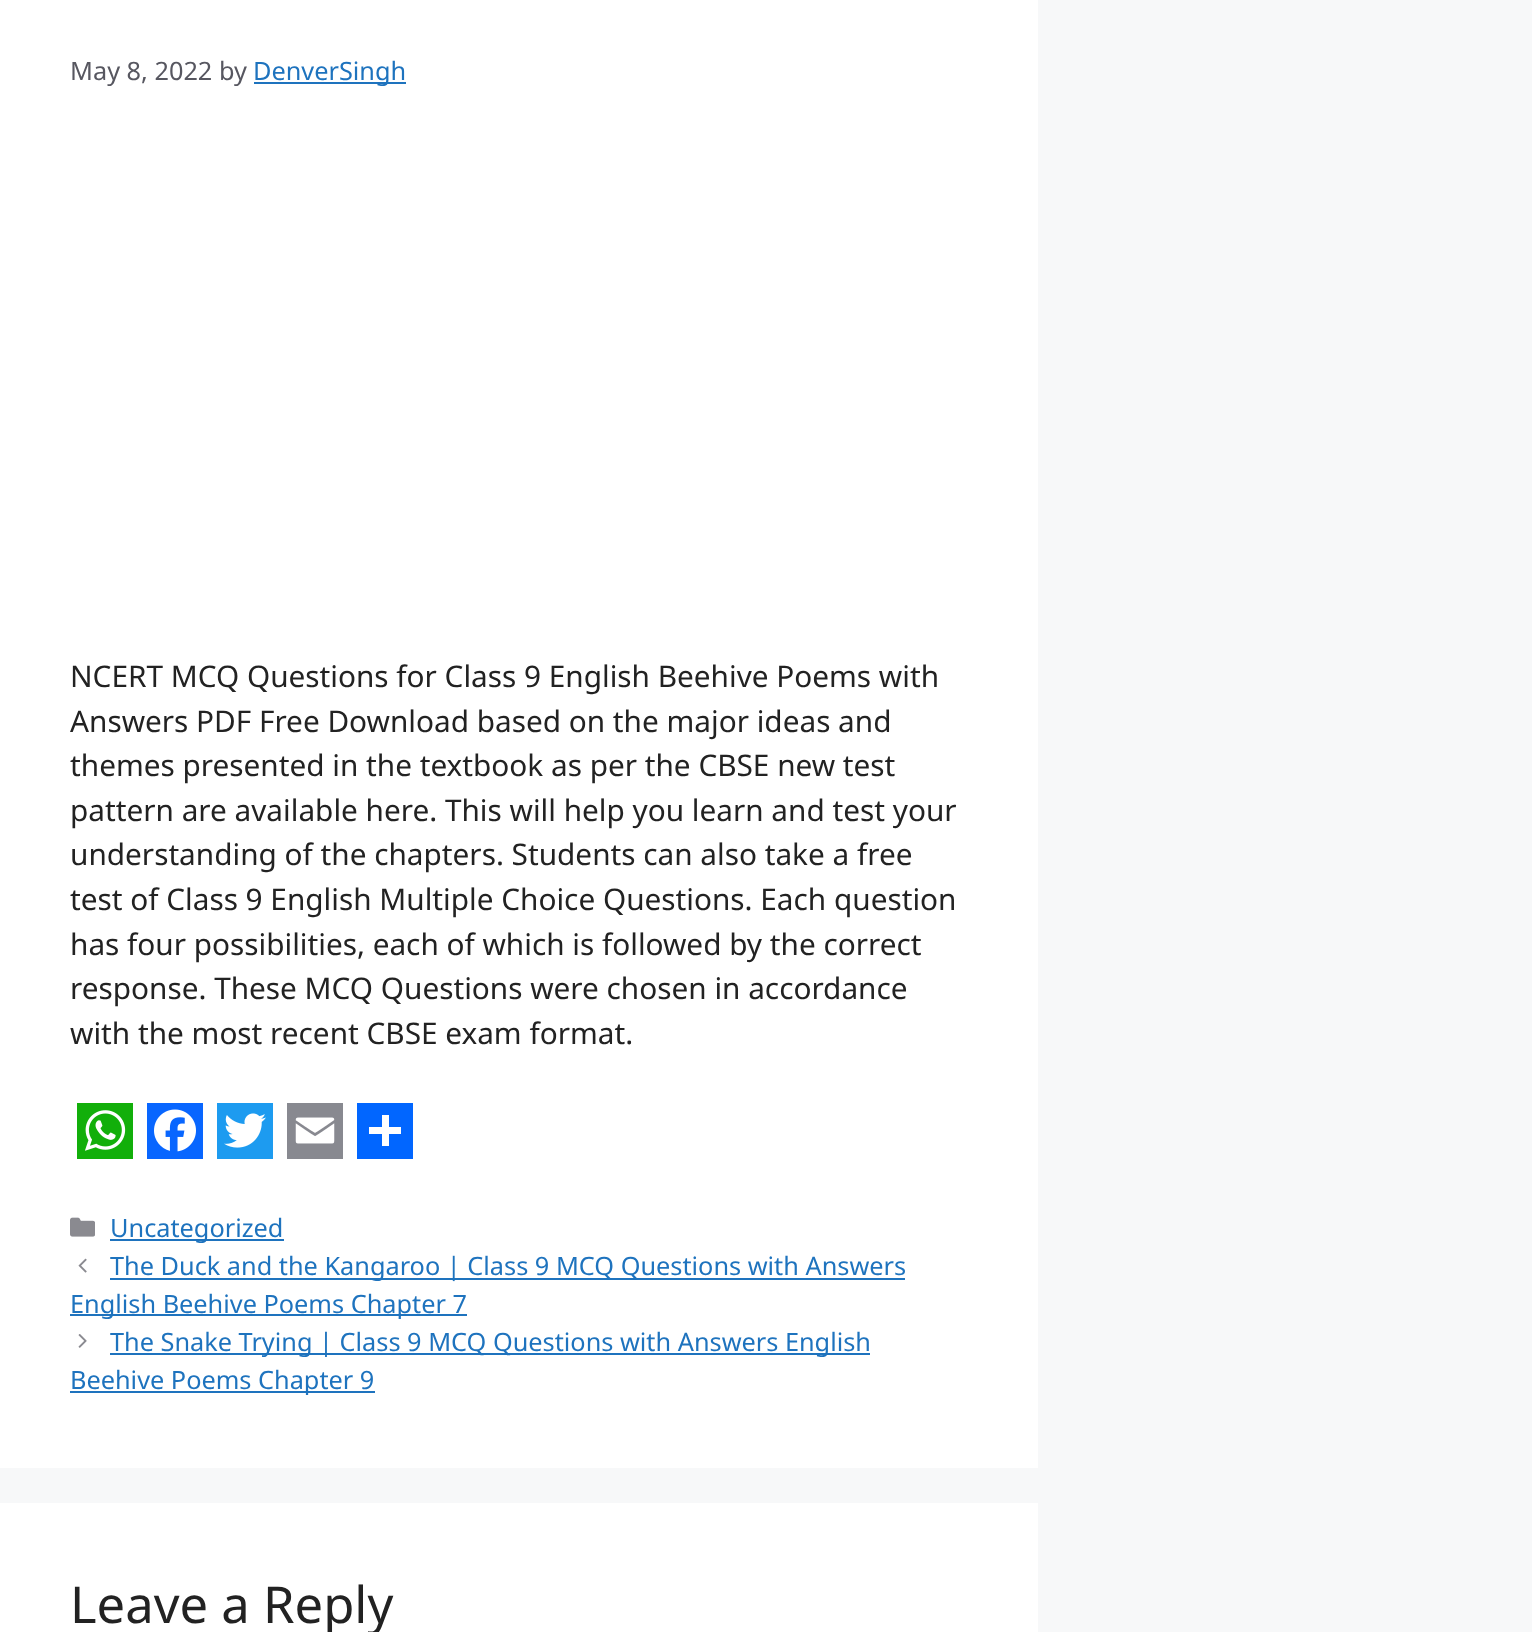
<svg xmlns="http://www.w3.org/2000/svg" width="1532" height="1632" viewBox="0 0 1532 1632">
  <rect width="100%" height="100%" fill="rgb(247,248,249)"/>
  <rect x="0" y="0" width="1038" height="1468" fill="rgb(255,255,255)"/>
  <text x="70" y="80" font-family="Noto Sans" font-size="25.3" fill="rgb(87,87,96)">May 8, 2022 by</text>
  <rect x="254" y="82" width="152" height="2" fill="rgb(30,115,190)"/>
  <text x="253" y="80" font-family="Noto Sans" font-size="25.3" fill="rgb(30,115,190)">DenverSingh</text>
  <g font-family="Noto Sans" font-size="29.75" fill="rgb(34,34,34)">
    <text>
      <tspan x="70" y="687">NCERT MCQ Questions for Class 9 English Beehive Poems with</tspan>
      <tspan x="70" y="732">Answers PDF Free Download based on the major ideas and</tspan>
      <tspan x="70" y="776">themes presented in the textbook as per the CBSE new test</tspan>
      <tspan x="70" y="821">pattern are available here. This will help you learn and test your</tspan>
      <tspan x="70" y="865">understanding of the chapters. Students can also take a free</tspan>
      <tspan x="70" y="910">test of Class 9 English Multiple Choice Questions. Each question</tspan>
      <tspan x="70" y="955">has four possibilities, each of which is followed by the correct</tspan>
      <tspan x="70" y="999">response. These MCQ Questions were chosen in accordance</tspan>
      <tspan x="70" y="1044">with the most recent CBSE exam format.</tspan>
    </text>
  </g>
  <rect x="77" y="1103" width="56" height="56" fill="rgb(18,175,10)"/>
  <image x="85" y="1110" width="41" height="41" href="pic1.png"/>
  <rect x="147" y="1103" width="56" height="56" fill="rgb(8,102,255)"/>
  <image x="154" y="1109" width="42" height="43" href="pic2.png"/>
  <rect x="217" y="1103" width="56" height="56" fill="rgb(29,155,240)"/>
  <image x="224" y="1113" width="42" height="35" href="pic3.png"/>
  <rect x="287" y="1103" width="56" height="56" fill="rgb(136,137,144)"/>
  <image x="295" y="1117" width="40" height="27" href="pic4.png"/>
  <rect x="357" y="1103" width="56" height="56" fill="rgb(1,102,255)"/>
  <rect x="382" y="1115" width="7" height="31" fill="rgb(255,255,255)"/>
  <rect x="369" y="1127" width="32" height="7" fill="rgb(255,255,255)"/>
  <image x="70" y="1217" width="25" height="20" href="pic5.png"/>
  <rect x="110" y="1239" width="174" height="2" fill="rgb(30,115,190)"/>
  <text x="110" y="1237" font-family="Noto Sans" font-size="25.3" fill="rgb(30,115,190)">Uncategorized</text>
  <image x="78" y="1258" width="9" height="15" href="pic6.png"/>
  <rect x="110" y="1278" width="795" height="2" fill="rgb(30,115,190)"/>
  <text x="110" y="1275" font-family="Noto Sans" font-size="25.3" fill="rgb(30,115,190)">The Duck and the Kangaroo | Class 9 MCQ Questions with Answers</text>
  <rect x="70" y="1314" width="397" height="2" fill="rgb(30,115,190)"/>
  <text x="70" y="1313" font-family="Noto Sans" font-size="25.3" fill="rgb(30,115,190)">English Beehive Poems Chapter 7</text>
  <image x="78" y="1334" width="9" height="14" href="pic7.png"/>
  <rect x="110" y="1353" width="760" height="2" fill="rgb(30,115,190)"/>
  <text x="110" y="1351" font-family="Noto Sans" font-size="25.3" fill="rgb(30,115,190)">The Snake Trying | Class 9 MCQ Questions with Answers English</text>
  <rect x="70" y="1391" width="305" height="2" fill="rgb(30,115,190)"/>
  <text x="70" y="1389" font-family="Noto Sans" font-size="25.3" fill="rgb(30,115,190)">Beehive Poems Chapter 9</text>
  <rect x="0" y="1503" width="1038" height="129" fill="rgb(255,255,255)"/>
  <text x="70" y="1623" font-family="Noto Sans" font-size="50.75" fill="rgb(34,34,34)">Leave a Reply</text>
</svg>
